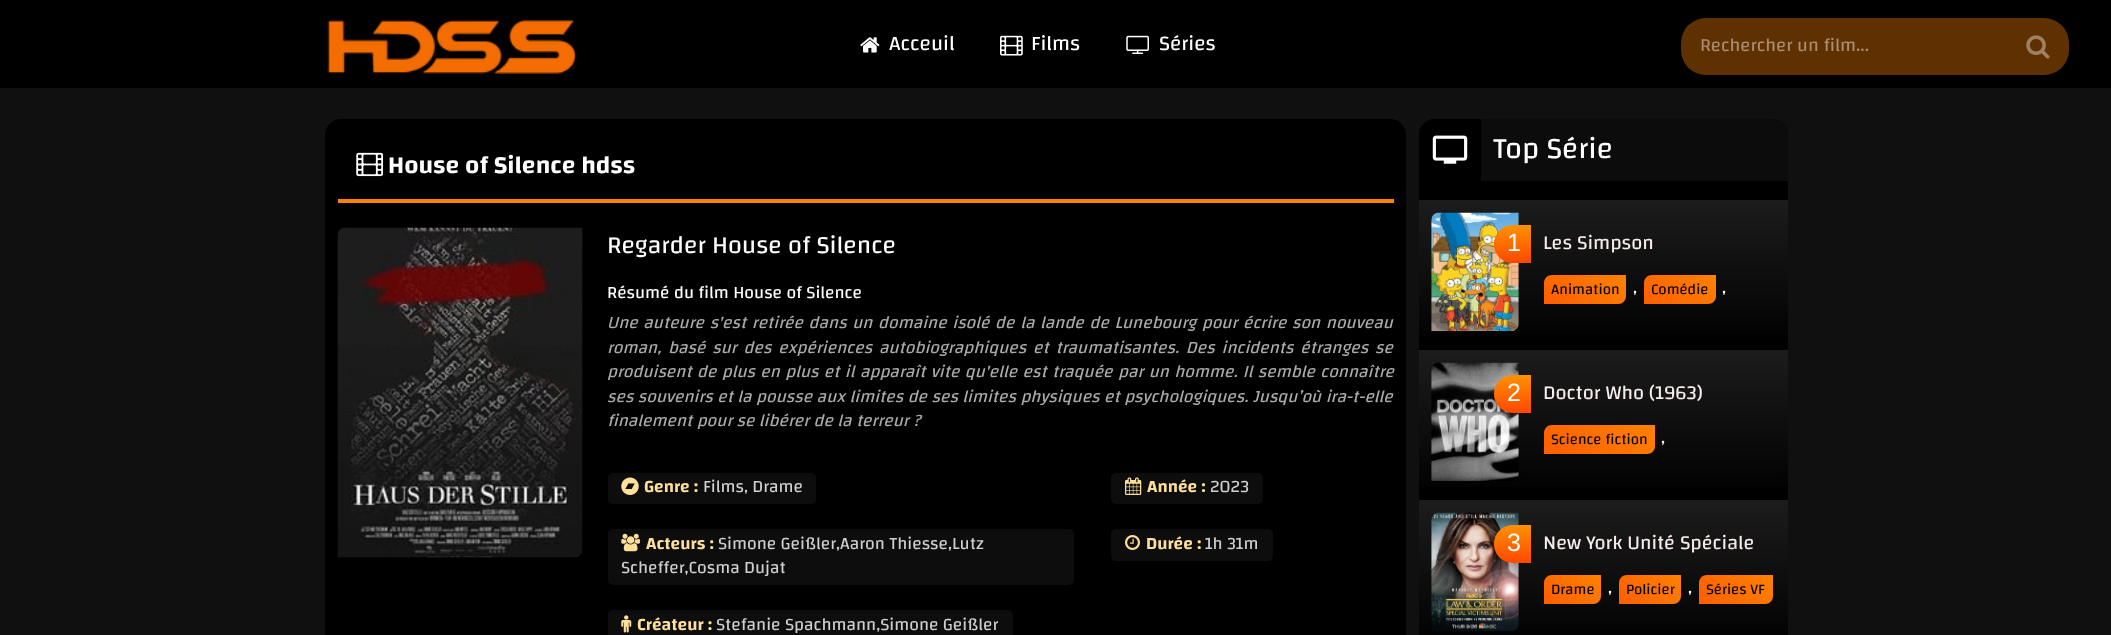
<svg xmlns="http://www.w3.org/2000/svg" width="2111" height="635" viewBox="0 0 2111 635">
  <defs>
    <linearGradient id="g1" gradientUnits="userSpaceOnUse" x1="1603" y1="200" x2="1603" y2="350"><stop offset="0" stop-color="rgb(28,28,28)"/><stop offset="1" stop-color="rgb(0,0,0)"/></linearGradient>
    <linearGradient id="g2" gradientUnits="userSpaceOnUse" x1="1513" y1="225" x2="1513" y2="263"><stop offset="0" stop-color="rgb(255,146,0)"/><stop offset="1" stop-color="rgb(255,71,0)"/></linearGradient>
    <linearGradient id="g3" gradientUnits="userSpaceOnUse" x1="1557" y1="317" x2="1613" y2="262"><stop offset="0" stop-color="rgb(255,94,0)"/><stop offset="1" stop-color="rgb(255,129,0)"/></linearGradient>
    <linearGradient id="g4" gradientUnits="userSpaceOnUse" x1="1655" y1="315" x2="1705" y2="264"><stop offset="0" stop-color="rgb(255,94,0)"/><stop offset="1" stop-color="rgb(255,129,0)"/></linearGradient>
    <linearGradient id="g5" gradientUnits="userSpaceOnUse" x1="1603" y1="350" x2="1603" y2="500"><stop offset="0" stop-color="rgb(28,28,28)"/><stop offset="1" stop-color="rgb(0,0,0)"/></linearGradient>
    <linearGradient id="g6" gradientUnits="userSpaceOnUse" x1="1513" y1="375" x2="1513" y2="413"><stop offset="0" stop-color="rgb(255,146,0)"/><stop offset="1" stop-color="rgb(255,71,0)"/></linearGradient>
    <linearGradient id="g7" gradientUnits="userSpaceOnUse" x1="1564" y1="474" x2="1634" y2="404"><stop offset="0" stop-color="rgb(255,94,0)"/><stop offset="1" stop-color="rgb(255,129,0)"/></linearGradient>
    <linearGradient id="g8" gradientUnits="userSpaceOnUse" x1="1603" y1="500" x2="1603" y2="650"><stop offset="0" stop-color="rgb(28,28,28)"/><stop offset="1" stop-color="rgb(0,0,0)"/></linearGradient>
    <linearGradient id="g9" gradientUnits="userSpaceOnUse" x1="1513" y1="525" x2="1513" y2="563"><stop offset="0" stop-color="rgb(255,146,0)"/><stop offset="1" stop-color="rgb(255,71,0)"/></linearGradient>
    <linearGradient id="g10" gradientUnits="userSpaceOnUse" x1="1551" y1="611" x2="1594" y2="568"><stop offset="0" stop-color="rgb(255,94,0)"/><stop offset="1" stop-color="rgb(255,129,0)"/></linearGradient>
    <linearGradient id="g11" gradientUnits="userSpaceOnUse" x1="1627" y1="612" x2="1673" y2="567"><stop offset="0" stop-color="rgb(255,94,0)"/><stop offset="1" stop-color="rgb(255,129,0)"/></linearGradient>
    <linearGradient id="g12" gradientUnits="userSpaceOnUse" x1="1710" y1="615" x2="1761" y2="564"><stop offset="0" stop-color="rgb(255,94,0)"/><stop offset="1" stop-color="rgb(255,129,0)"/></linearGradient>
  </defs>
  <rect width="100%" height="100%" fill="rgb(16,16,16)"/>
  <rect x="0" y="0" width="2111" height="88" fill="rgb(0,0,0)"/>
  <image x="327" y="20" width="250" height="54" href="pic1.png"/>
  <image x="860" y="37" width="20" height="16" href="pic2.png"/>
  <text x="889" y="50" font-family="Changa" font-size="21" fill="rgb(255,255,255)">Acceuil</text>
  <image x="1000" y="35" width="23" height="21" href="pic3.png"/>
  <text x="1031" y="50" font-family="Changa" font-size="21" fill="rgb(255,255,255)">Films</text>
  <image x="1126" y="35" width="23" height="19" href="pic4.png"/>
  <text x="1159" y="50" font-family="Changa" font-size="21" fill="rgb(255,255,255)">Séries</text>
  <rect x="1681" y="18" width="388" height="57" rx="25" fill="rgb(96,49,0)"/>
  <text x="1700" y="51" font-family="Changa" font-size="18.75" fill="rgb(167,141,114)">Rechercher un film...</text>
  <image x="2026" y="35" width="24" height="24" href="pic5.png"/>
  <rect x="325" y="119" width="1081" height="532" rx="16" fill="rgb(0,0,0)"/>
  <rect x="338" y="199" width="1056" height="4" fill="rgb(255,129,0)"/>
  <image x="356" y="152" width="28" height="25" href="pic6.png"/>
  <text x="388" y="173" font-family="Changa" font-size="25" font-weight="600" fill="rgb(255,255,255)">House of Silence hdss</text>
  <image x="337" y="227" width="246" height="331" href="pic7.png"/>
  <text x="607" y="253" font-family="Changa" font-size="25" fill="rgb(255,255,255)">Regarder House of Silence</text>
  <text x="607" y="298" font-family="Changa" font-size="17.5" fill="rgb(255,255,255)">Résumé du film House of Silence</text>
  <g font-family="Changa" font-size="17.5" font-style="italic" fill="rgb(170,170,170)">
    <text>
      <tspan x="607" y="328" word-spacing="1.25">Une auteure s'est retirée dans un domaine isolé de la lande de Lunebourg pour écrire son nouveau</tspan>
      <tspan x="607" y="353" word-spacing="2.5">roman, basé sur des expériences autobiographiques et traumatisantes. Des incidents étranges se</tspan>
      <tspan x="607" y="377" word-spacing="1">produisent de plus en plus et il apparaît vite qu'elle est traquée par un homme. Il semble connaître</tspan>
      <tspan x="607" y="402" word-spacing="0.1">ses souvenirs et la pousse aux limites de ses limites physiques et psychologiques. Jusqu’où ira-t-elle</tspan>
      <tspan x="607" y="426">finalement pour se libérer de la terreur ?</tspan>
    </text>
  </g>
  <rect x="608" y="473" width="208" height="31" rx="5" fill="rgb(13,13,13)"/>
  <image x="621" y="477" width="18" height="18" href="pic8.png"/>
  <text x="644" y="492" font-family="Changa" font-size="17.5" font-weight="600" fill="rgb(253,223,154)">Genre :</text>
  <text x="703" y="492" font-family="Changa" font-size="17.5" fill="rgb(207,207,207)">Films, Drame</text>
  <rect x="608" y="529" width="466" height="56" rx="5" fill="rgb(13,13,13)"/>
  <image x="621" y="533" width="19" height="19" href="pic9.png"/>
  <text x="646" y="549" font-family="Changa" font-size="17.5" font-weight="600" fill="rgb(253,223,154)">Acteurs :</text>
  <g font-family="Changa" font-size="17.5" fill="rgb(207,207,207)">
    <text x="718" y="549">Simone Geißler,Aaron Thiesse,Lutz</text>
    <text x="621" y="573">Scheffer,Cosma Dujat</text>
  </g>
  <rect x="608" y="610" width="405" height="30" rx="5" fill="rgb(13,13,13)"/>
  <image x="621" y="615" width="11" height="18" href="pic10.png"/>
  <text x="637" y="630" font-family="Changa" font-size="17.5" font-weight="600" fill="rgb(253,223,154)">Créateur :</text>
  <text x="716" y="630" font-family="Changa" font-size="17.5" fill="rgb(207,207,207)">Stefanie Spachmann,Simone Geißler</text>
  <rect x="1111" y="473" width="152" height="31" rx="5" fill="rgb(13,13,13)"/>
  <image x="1125" y="477" width="17" height="18" href="pic11.png"/>
  <text x="1147" y="492" font-family="Changa" font-size="17.5" font-weight="600" fill="rgb(253,223,154)">Année :</text>
  <text x="1210" y="492" font-family="Changa" font-size="17.5" fill="rgb(207,207,207)">2023</text>
  <rect x="1111" y="529" width="162" height="32" rx="5" fill="rgb(13,13,13)"/>
  <image x="1125" y="535" width="15" height="15" href="pic12.png"/>
  <text x="1146" y="549" font-family="Changa" font-size="17.5" font-weight="600" fill="rgb(253,223,154)">Durée :</text>
  <text x="1205" y="549" font-family="Changa" font-size="17.5" fill="rgb(207,207,207)">1h 31m</text>
  <rect x="1419" y="119" width="369" height="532" rx="16" fill="rgb(0,0,0)"/>
  <path d="M1435 119H1772C1781 119 1788 126 1788 135V181H1419V135C1419 126 1426 119 1435 119Z" fill="rgb(12,12,12)"/>
  <path d="M1435 119H1481V181H1419V135C1419 126 1426 119 1435 119Z" fill="rgb(0,0,0)"/>
  <image x="1432" y="135" width="36" height="29" href="pic13.png"/>
  <text x="1493" y="158" font-family="Changa" font-size="30" fill="rgb(255,255,255)">Top Série</text>
  <rect x="1419" y="200" width="369" height="137" fill="url(#g1)"/>
  <image x="1431" y="212" width="88" height="120" href="pic14.png"/>
  <path d="M1512.5 225H1531V263H1512.5C1502.5 263 1494 254.5 1494 244.5V243.5C1494 233.5 1502.5 225 1512.5 225Z" fill="url(#g2)"/>
  <text x="1507" y="251" font-family="Liberation Sans" font-size="25" fill="rgb(255,255,255)">1</text>
  <text x="1543" y="249" font-family="Changa" font-size="20" fill="rgb(247,237,237)">Les Simpson</text>
  <path d="M1552 275H1626V296C1626 300.5 1622.5 304 1618 304H1544V283C1544 278.5 1547.5 275 1552 275Z" fill="url(#g3)"/>
  <text x="1551" y="294" font-family="Changa" font-size="15" fill="rgb(0,0,0)">Animation</text>
  <text x="1633" y="293" font-family="Changa" font-size="17.5" fill="rgb(255,255,255)">,</text>
  <path d="M1652 275H1716V296C1716 300.5 1712.5 304 1708 304H1644V283C1644 278.5 1647.5 275 1652 275Z" fill="url(#g4)"/>
  <text x="1651" y="294" font-family="Changa" font-size="15" fill="rgb(0,0,0)">Comédie</text>
  <text x="1722" y="293" font-family="Changa" font-size="17.5" fill="rgb(255,255,255)">,</text>
  <rect x="1419" y="350" width="369" height="137" fill="url(#g5)"/>
  <image x="1431" y="362" width="88" height="119" href="pic15.png"/>
  <path d="M1512.5 375H1531V413H1512.5C1502.5 413 1494 404.5 1494 394.5V393.5C1494 383.5 1502.5 375 1512.5 375Z" fill="url(#g6)"/>
  <text x="1507" y="401" font-family="Liberation Sans" font-size="25" fill="rgb(255,255,255)">2</text>
  <text x="1543" y="399" font-family="Changa" font-size="20" fill="rgb(247,237,237)">Doctor Who (1963)</text>
  <path d="M1552 425H1655V446C1655 450.5 1651.5 454 1647 454H1544V433C1544 428.5 1547.5 425 1552 425Z" fill="url(#g7)"/>
  <text x="1551" y="444" font-family="Changa" font-size="15" fill="rgb(0,0,0)">Science fiction</text>
  <text x="1661" y="443" font-family="Changa" font-size="17.5" fill="rgb(255,255,255)">,</text>
  <rect x="1419" y="500" width="369" height="135" fill="url(#g8)"/>
  <image x="1431" y="512" width="88" height="119" href="pic16.png"/>
  <path d="M1512.5 525H1531V563H1512.5C1502.5 563 1494 554.5 1494 544.5V543.5C1494 533.5 1502.5 525 1512.5 525Z" fill="url(#g9)"/>
  <text x="1507" y="551" font-family="Liberation Sans" font-size="25" fill="rgb(255,255,255)">3</text>
  <text x="1543" y="549" font-family="Changa" font-size="20" fill="rgb(247,237,237)">New York Unité Spéciale</text>
  <path d="M1552 575H1601V596C1601 600.5 1597.5 604 1593 604H1544V583C1544 578.5 1547.5 575 1552 575Z" fill="url(#g10)"/>
  <text x="1551" y="594" font-family="Changa" font-size="15" fill="rgb(0,0,0)">Drame</text>
  <text x="1608" y="593" font-family="Changa" font-size="17.5" fill="rgb(255,255,255)">,</text>
  <path d="M1627 575H1681V596C1681 600.5 1677.5 604 1673 604H1619V583C1619 578.5 1622.5 575 1627 575Z" fill="url(#g11)"/>
  <text x="1626" y="594" font-family="Changa" font-size="15" fill="rgb(0,0,0)">Policier</text>
  <text x="1688" y="593" font-family="Changa" font-size="17.5" fill="rgb(255,255,255)">,</text>
  <path d="M1707 575H1773V596C1773 600.5 1769.5 604 1765 604H1699V583C1699 578.5 1702.5 575 1707 575Z" fill="url(#g12)"/>
  <text x="1706" y="594" font-family="Changa" font-size="15" fill="rgb(0,0,0)">Séries VF</text>
</svg>
